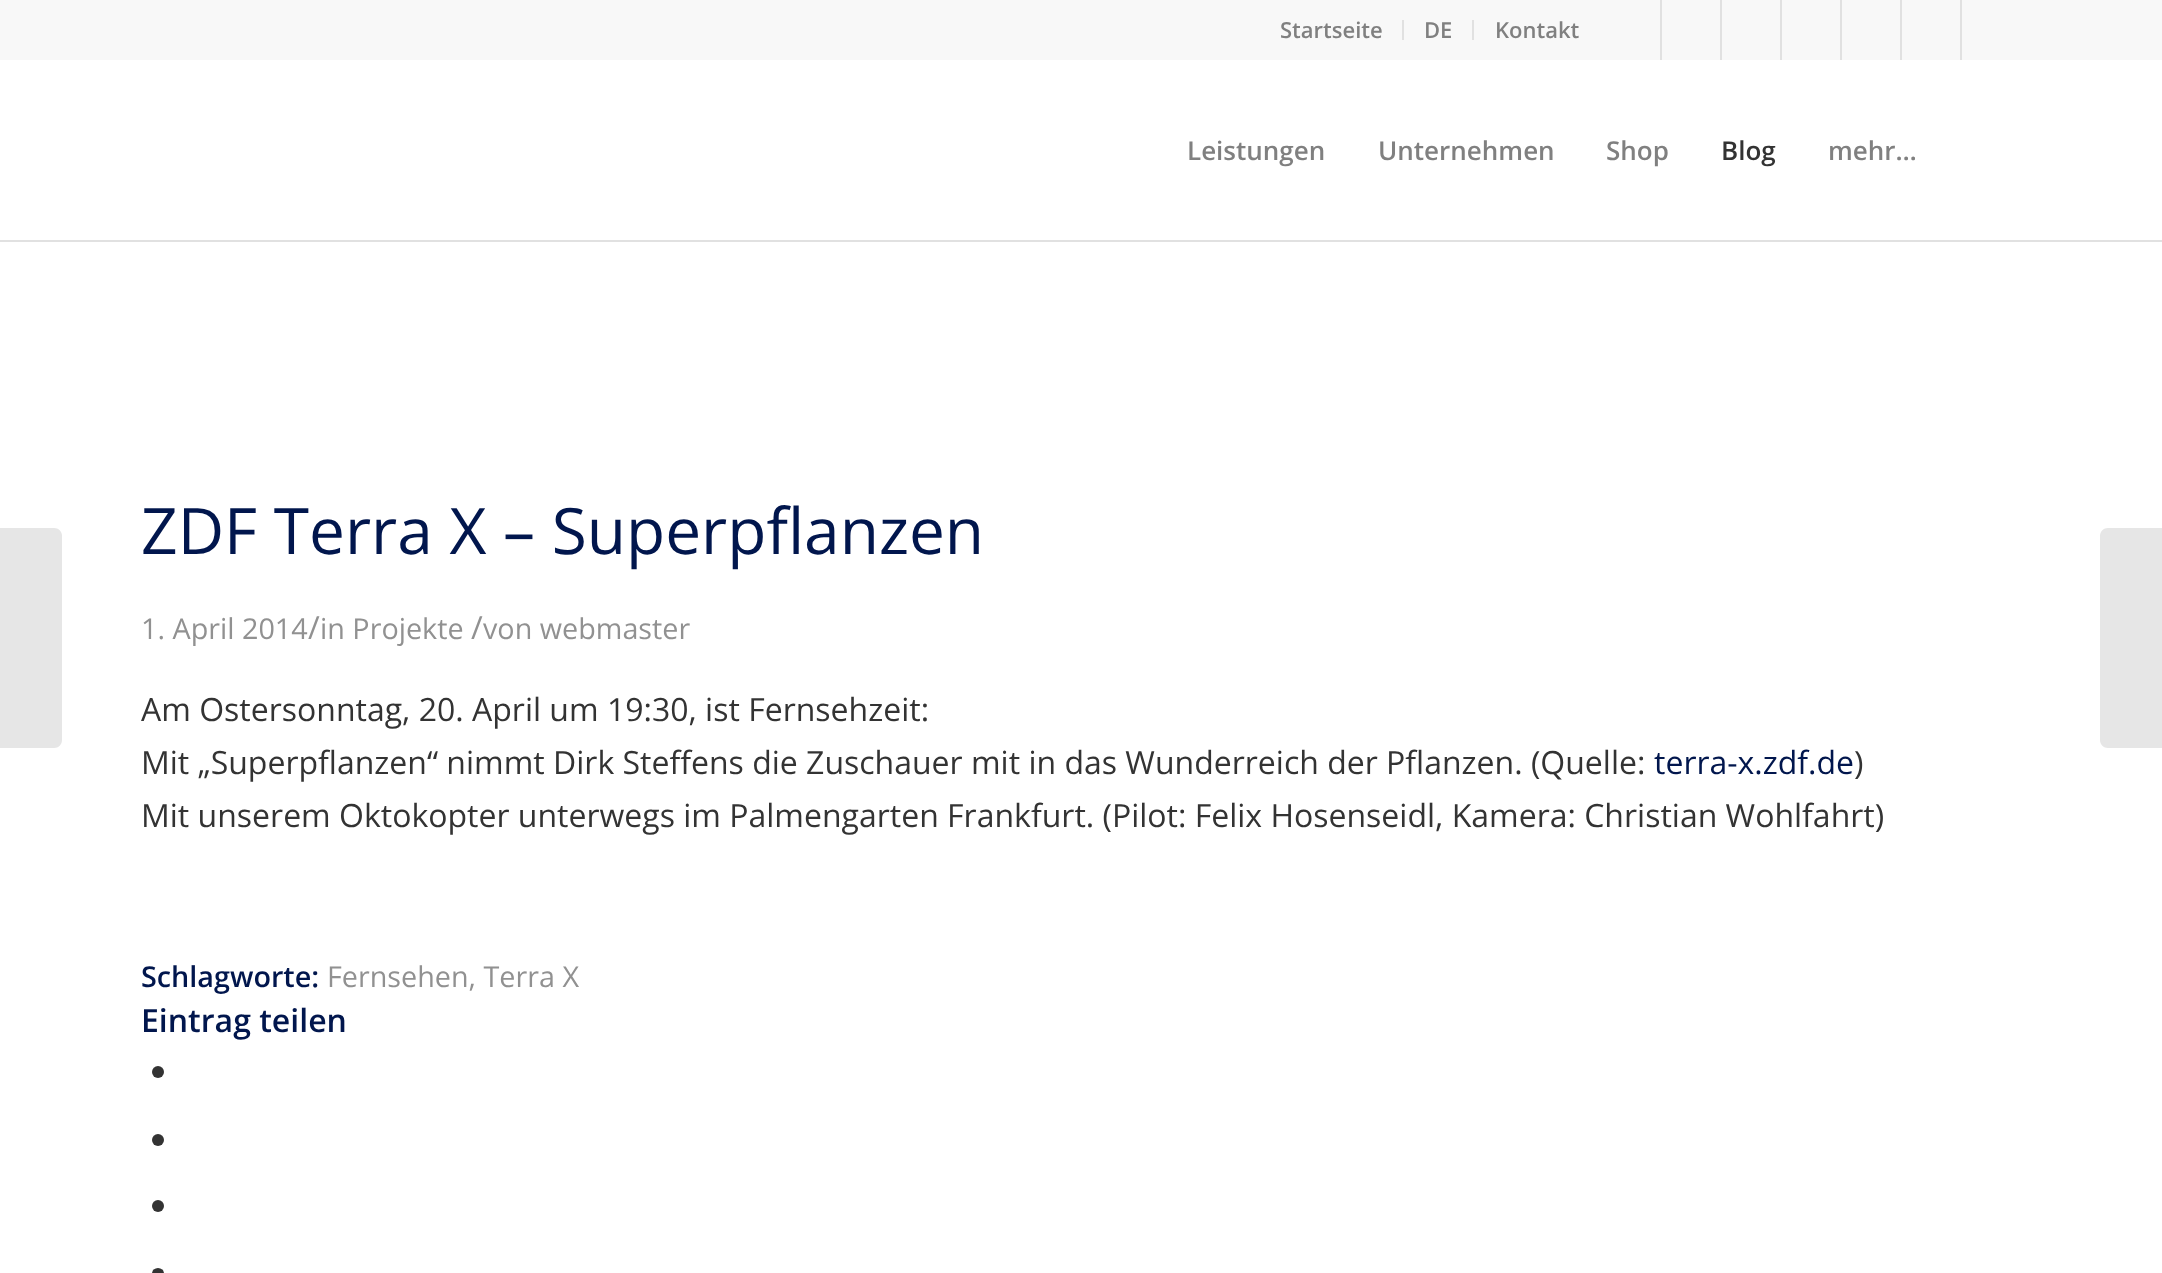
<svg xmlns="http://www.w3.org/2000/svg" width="2162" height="1273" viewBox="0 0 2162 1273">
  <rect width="100%" height="100%" fill="rgb(255,255,255)"/>
  <rect x="0" y="0" width="2162" height="60" fill="rgb(248,248,248)"/>
  <rect x="1402" y="20" width="2" height="20" fill="rgb(225,225,225)"/>
  <text x="1280" y="38" font-family="Open Sans" font-size="22" font-weight="600" fill="rgb(128,128,128)">Startseite</text>
  <rect x="1472" y="20" width="2" height="20" fill="rgb(225,225,225)"/>
  <g font-family="Open Sans" font-size="22" font-weight="600" fill="rgb(128,128,128)">
    <text x="1424" y="38">DE</text>
    <text x="1495" y="38">Kontakt</text>
  </g>
  <rect x="1660" y="0" width="2" height="60" fill="rgb(225,225,225)"/>
  <rect x="1720" y="0" width="2" height="60" fill="rgb(225,225,225)"/>
  <rect x="1780" y="0" width="2" height="60" fill="rgb(225,225,225)"/>
  <rect x="1840" y="0" width="2" height="60" fill="rgb(225,225,225)"/>
  <rect x="1900" y="0" width="2" height="60" fill="rgb(225,225,225)"/>
  <rect x="1960" y="0" width="2" height="60" fill="rgb(225,225,225)"/>
  <g font-family="Open Sans" font-size="26" font-weight="600" fill="rgb(128,128,128)">
    <text x="1187" y="160">Leistungen</text>
    <text x="1378" y="160">Unternehmen</text>
    <text x="1606" y="160">Shop</text>
  </g>
  <text x="1721" y="160" font-family="Open Sans" font-size="26" font-weight="600" fill="rgb(51,51,51)">Blog</text>
  <text x="1828" y="160" font-family="Open Sans" font-size="26" font-weight="600" fill="rgb(128,128,128)">mehr…</text>
  <path d="M0 528H54C58.5 528 62 531.5 62 536V740C62 744.5 58.5 748 54 748H0Z" fill="rgb(230,230,230)"/>
  <rect x="0" y="240" width="2162" height="2" fill="rgb(225,225,225)"/>
  <text x="141" y="554" font-family="Open Sans" font-size="64" fill="rgb(1,22,77)">ZDF Terra X – Superpflanzen</text>
  <text x="141" y="639" font-family="Open Sans" font-size="28.75" fill="rgb(145,145,145)">1. April 2014</text>
  <text x="308" y="639" font-family="Open Sans" font-size="32" fill="rgb(145,145,145)">/</text>
  <text x="320" y="639" font-family="Open Sans" font-size="28.75" fill="rgb(145,145,145)">in Projekte</text>
  <text x="471" y="639" font-family="Open Sans" font-size="32" fill="rgb(145,145,145)">/</text>
  <text x="483" y="639" font-family="Open Sans" font-size="28.75" fill="rgb(145,145,145)">von webmaster</text>
  <g font-family="Open Sans" font-size="32" fill="rgb(51,51,51)">
    <text>
      <tspan x="141" y="721">Am Ostersonntag, 20. April um 19:30, ist Fernsehzeit:</tspan>
      <tspan x="141" y="774">Mit „Superpflanzen“ nimmt Dirk Steffens die Zuschauer mit in das Wunderreich der Pflanzen. (Quelle:</tspan>
    </text>
  </g>
  <text x="1654" y="774" font-family="Open Sans" font-size="32" fill="rgb(1,22,77)">terra-x.zdf.de</text>
  <g font-family="Open Sans" font-size="32" fill="rgb(51,51,51)">
    <text x="1854" y="774">)</text>
    <text x="141" y="827">Mit unserem Oktokopter unterwegs im Palmengarten Frankfurt. (Pilot: Felix Hosenseidl, Kamera: Christian Wohlfahrt)</text>
  </g>
  <text x="141" y="987" font-family="Open Sans" font-size="28.75" font-weight="600" fill="rgb(1,22,77)">Schlagworte:</text>
  <text x="327" y="987" font-family="Open Sans" font-size="28.75" fill="rgb(145,145,145)">Fernsehen, Terra X</text>
  <text x="141" y="1032" font-family="Open Sans" font-size="32" font-weight="600" fill="rgb(1,22,77)">Eintrag teilen</text>
  <circle cx="158" cy="1072" r="6" fill="rgb(51,51,51)"/>
  <circle cx="158" cy="1140" r="6" fill="rgb(51,51,51)"/>
  <circle cx="158" cy="1206" r="6" fill="rgb(51,51,51)"/>
  <rect x="152" y="1268" width="12" height="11" rx="6" fill="rgb(51,51,51)"/>
  <path d="M2108 528H2162V748H2108C2103.5 748 2100 744.5 2100 740V536C2100 531.5 2103.5 528 2108 528Z" fill="rgb(230,230,230)"/>
</svg>
